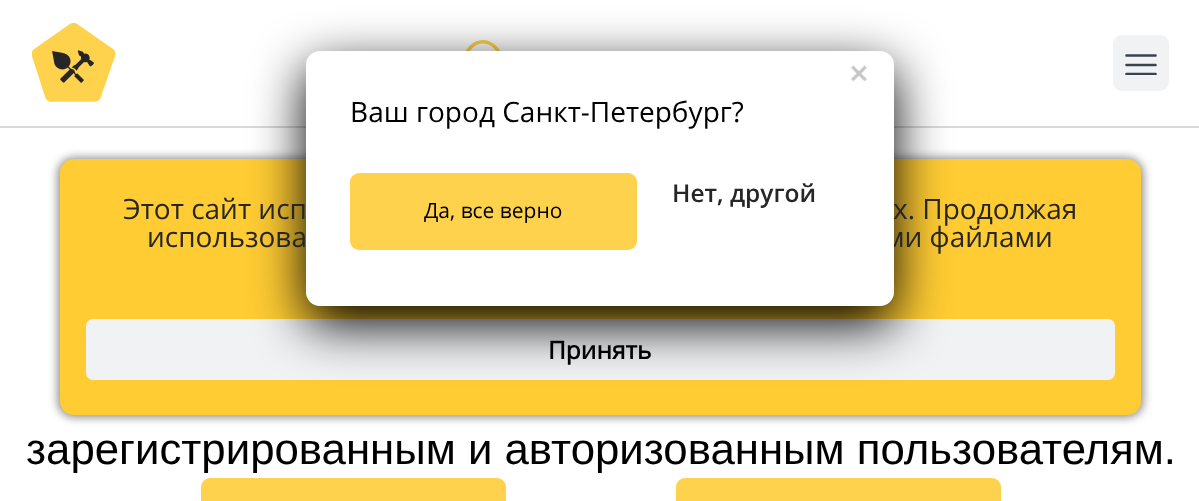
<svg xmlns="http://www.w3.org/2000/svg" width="1199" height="501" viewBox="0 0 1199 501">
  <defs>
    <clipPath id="clip1"><rect x="1125" y="54" width="32" height="21"/></clipPath>
  </defs>
  <rect width="100%" height="100%" fill="rgb(255,255,255)"/>
  <rect x="0" y="126" width="1199" height="2" fill="rgb(218,218,218)"/>
  <image x="32" y="23" width="84" height="79" href="pic1.png"/>
  <path d="M495.5 72L489 78C487 80.5 484 84 480.5 81.5L468 69C464 62 465 53 470.5 47.5C486.5 30.5 512 55.5 495.5 72Z" fill="none" stroke="rgb(255,210,77)" stroke-width="3.5" stroke-linecap="round" stroke-linejoin="round"/>
  <rect x="1113" y="35" width="56" height="56" rx="9" fill="rgb(240,242,244)"/>
  <g clip-path="url(#clip1)">
    <path d="M1126.5 55.5H1155.5M1126.5 65H1155.5M1126.5 74H1155.5" fill="none" stroke="rgb(58,66,80)" stroke-width="2.6" stroke-linecap="round" stroke-linejoin="round"/>
  </g>
  <rect x="58" y="158" width="1085" height="259" rx="16" fill="rgba(0,0,0,0.25)" filter="blur(5px)"/>
  <rect x="58" y="158" width="1085" height="259" rx="16" fill="rgba(0,0,0,0.25)" filter="blur(5px)"/>
  <rect x="60" y="159" width="1081" height="256" rx="14" fill="rgb(255,204,51)"/>
  <rect x="86" y="319" width="1029" height="61" rx="7" fill="rgb(240,242,244)"/>
  <rect x="306" y="68" width="588" height="256" rx="14" fill="rgb(0,0,0)" filter="blur(26px)"/>
  <g font-family="Open Sans" font-size="28" fill="rgb(38,38,38)">
    <text x="893" y="219">х. Продолжая</text>
    <text x="884" y="247">ми файлами</text>
  </g>
  <rect x="306" y="51" width="588" height="255" rx="14" fill="rgb(255,255,255)"/>
  <image x="850" y="65" width="17" height="17" href="pic2.png"/>
  <text x="350" y="122" font-family="'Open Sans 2'" font-size="28" fill="rgb(0,0,0)">Ваш город Санкт-Петербург?</text>
  <text x="672" y="202" font-family="Open Sans" font-size="24.5" font-weight="600" fill="rgb(38,38,38)">Нет, другой</text>
  <rect x="350" y="173" width="287" height="77" rx="9" fill="rgb(255,210,77)"/>
  <text x="424" y="218" font-family="'Open Sans 2'" font-size="21" fill="rgb(0,0,0)">Да, все верно</text>
  <g font-family="Open Sans" font-size="28" fill="rgb(38,38,38)">
    <text x="123" y="219">Этот сайт исп</text>
    <text x="147" y="247">использова</text>
  </g>
  <text x="548" y="359" font-family="Open Sans" font-size="24.5" font-weight="bold" fill="rgb(0,0,0)">Принять</text>
  <text x="26" y="464" font-family="Liberation Sans" font-size="43.75" fill="rgb(0,0,0)">зарегистрированным и авторизованным пользователям.</text>
  <rect x="201" y="478" width="305" height="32" rx="9" fill="rgb(255,210,77)"/>
  <rect x="676" y="478" width="325" height="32" rx="9" fill="rgb(255,210,77)"/>
</svg>
